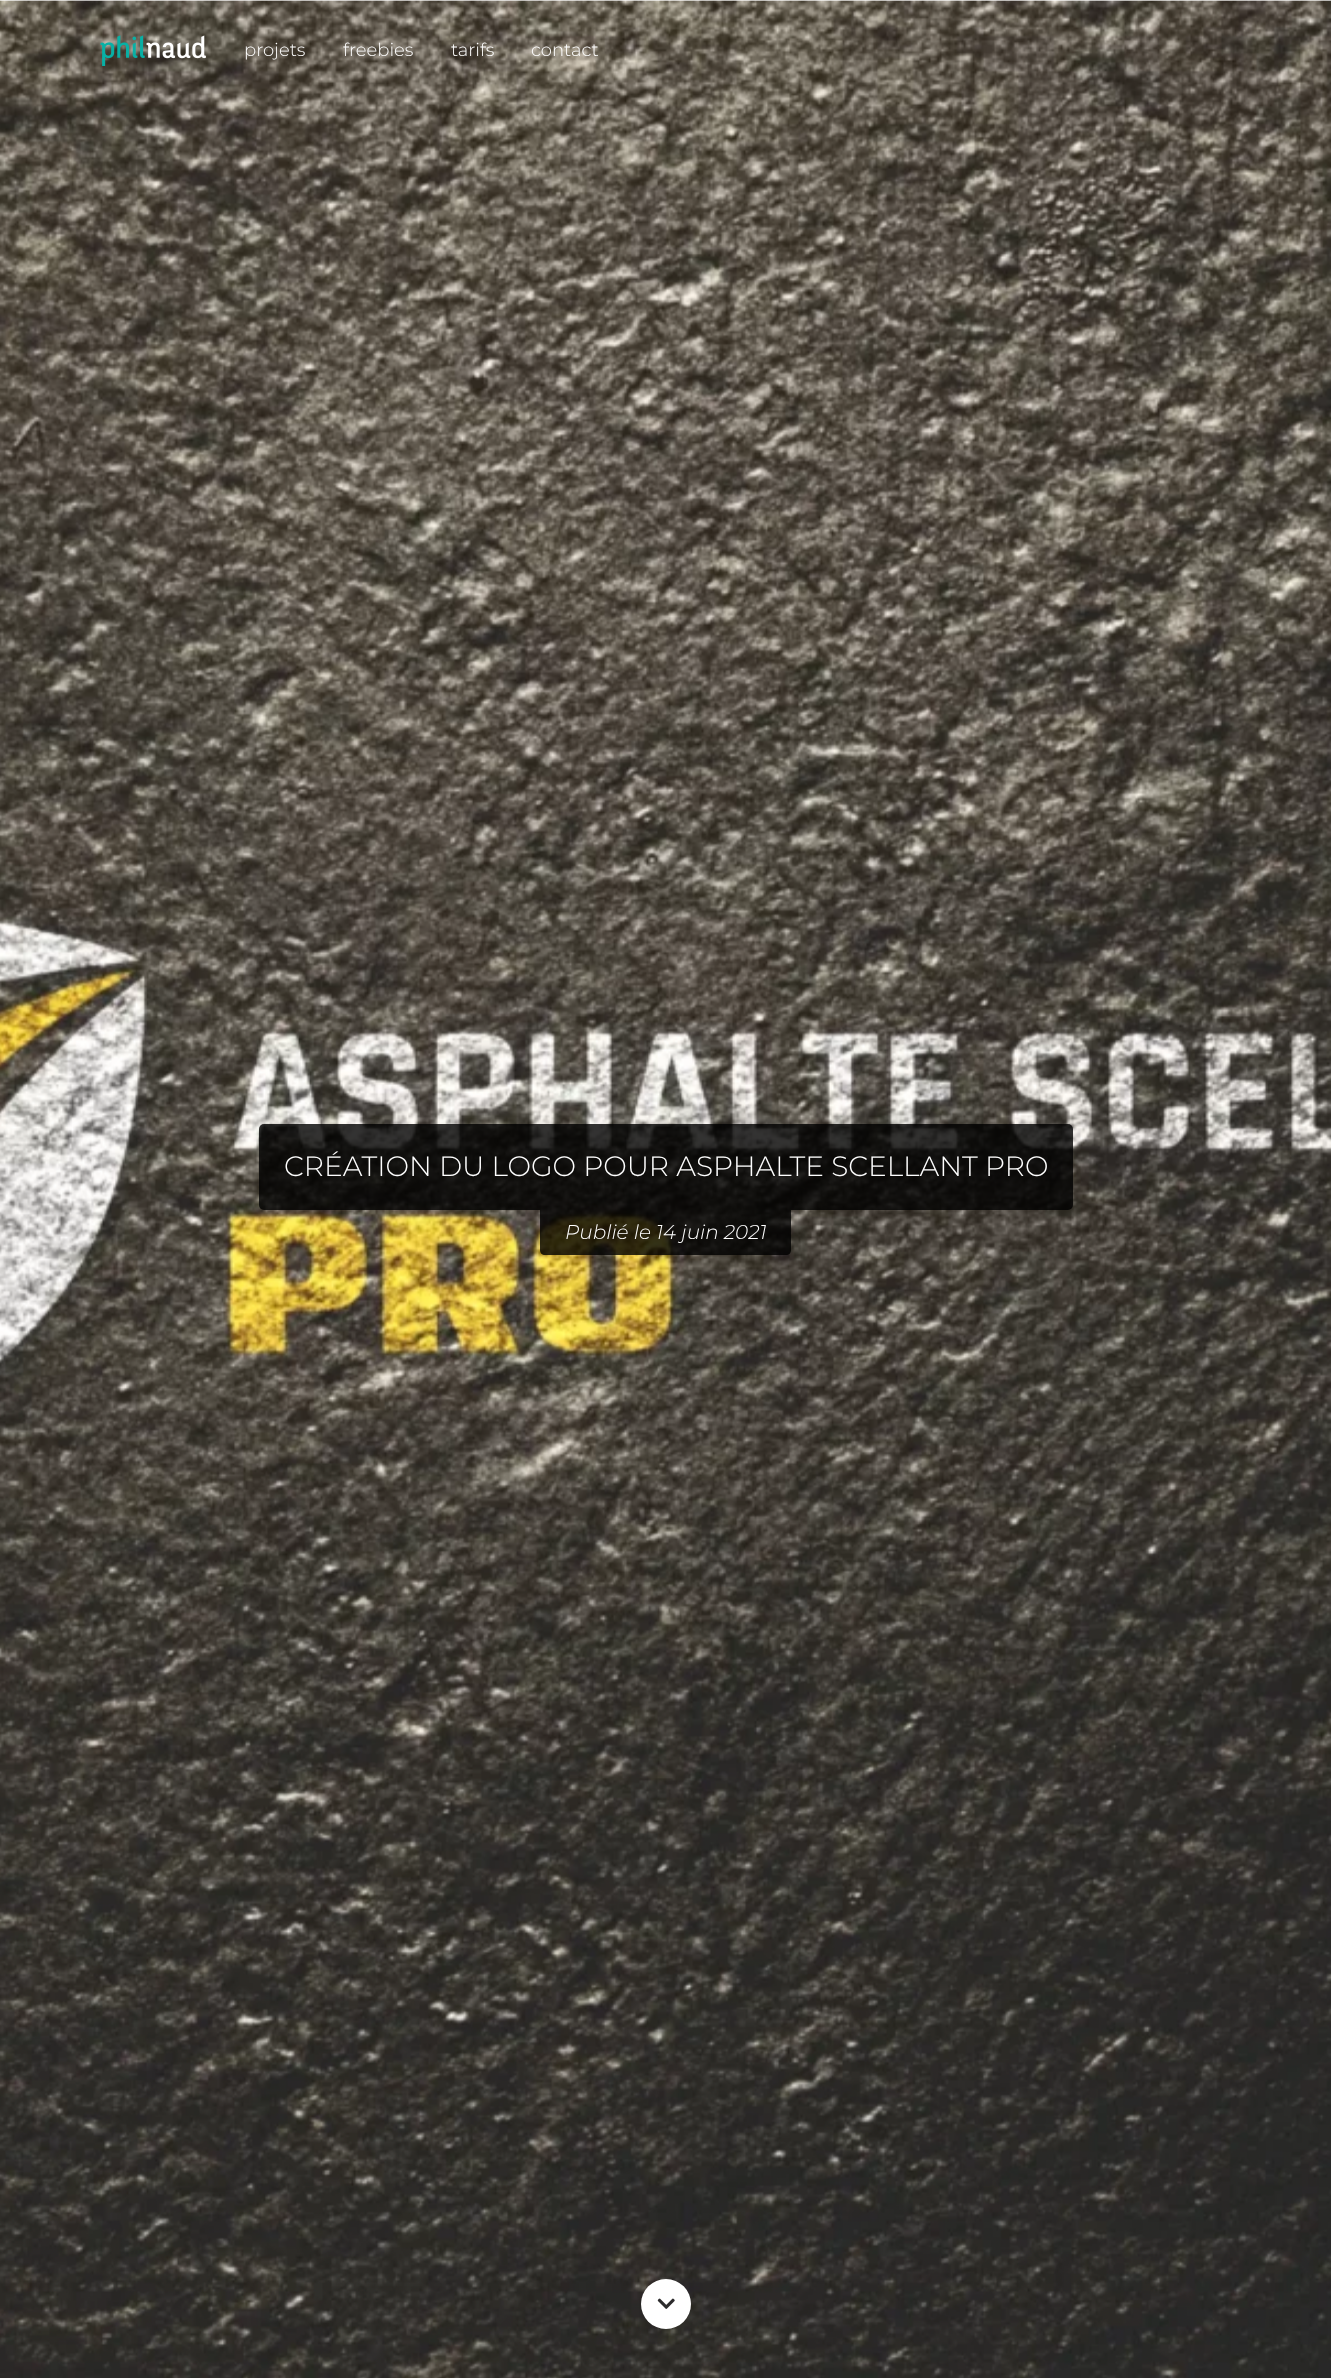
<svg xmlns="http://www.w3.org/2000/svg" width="1331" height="2378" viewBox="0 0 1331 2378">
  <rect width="100%" height="100%" fill="rgb(255,255,255)"/>
  <image x="0" y="0" width="1331" height="2378" href="pic2.png"/>
  <image x="100" y="35" width="106" height="31" href="pic1.png"/>
  <g font-family="Montserrat" font-size="18" font-weight="300" fill="rgb(255,255,255)">
    <text x="244" y="56">projets</text>
    <text x="343" y="56">freebies</text>
    <text x="451" y="56">tarifs</text>
    <text x="531" y="56">contact</text>
  </g>
  <rect x="259" y="1124" width="814" height="86" rx="5" fill="rgba(0,0,0,0.8)"/>
  <text x="284" y="1176" font-family="Montserrat" font-size="28" font-weight="300" fill="rgb(255,255,255)">CRÉATION DU LOGO POUR ASPHALTE SCELLANT PRO</text>
  <path d="M540 1210H791V1250C791 1253 789 1255 786 1255H545C542 1255 540 1253 540 1250Z" fill="rgba(0,0,0,0.8)"/>
  <text x="565" y="1239" font-family="Montserrat" font-size="20" font-weight="300" font-style="italic" fill="rgb(255,255,255)">Publié le 14 juin 2021</text>
  <circle cx="666" cy="2304" r="25" fill="rgb(255,255,255)"/>
  <image x="657" y="2298" width="18" height="11" href="pic3.png"/>
</svg>
